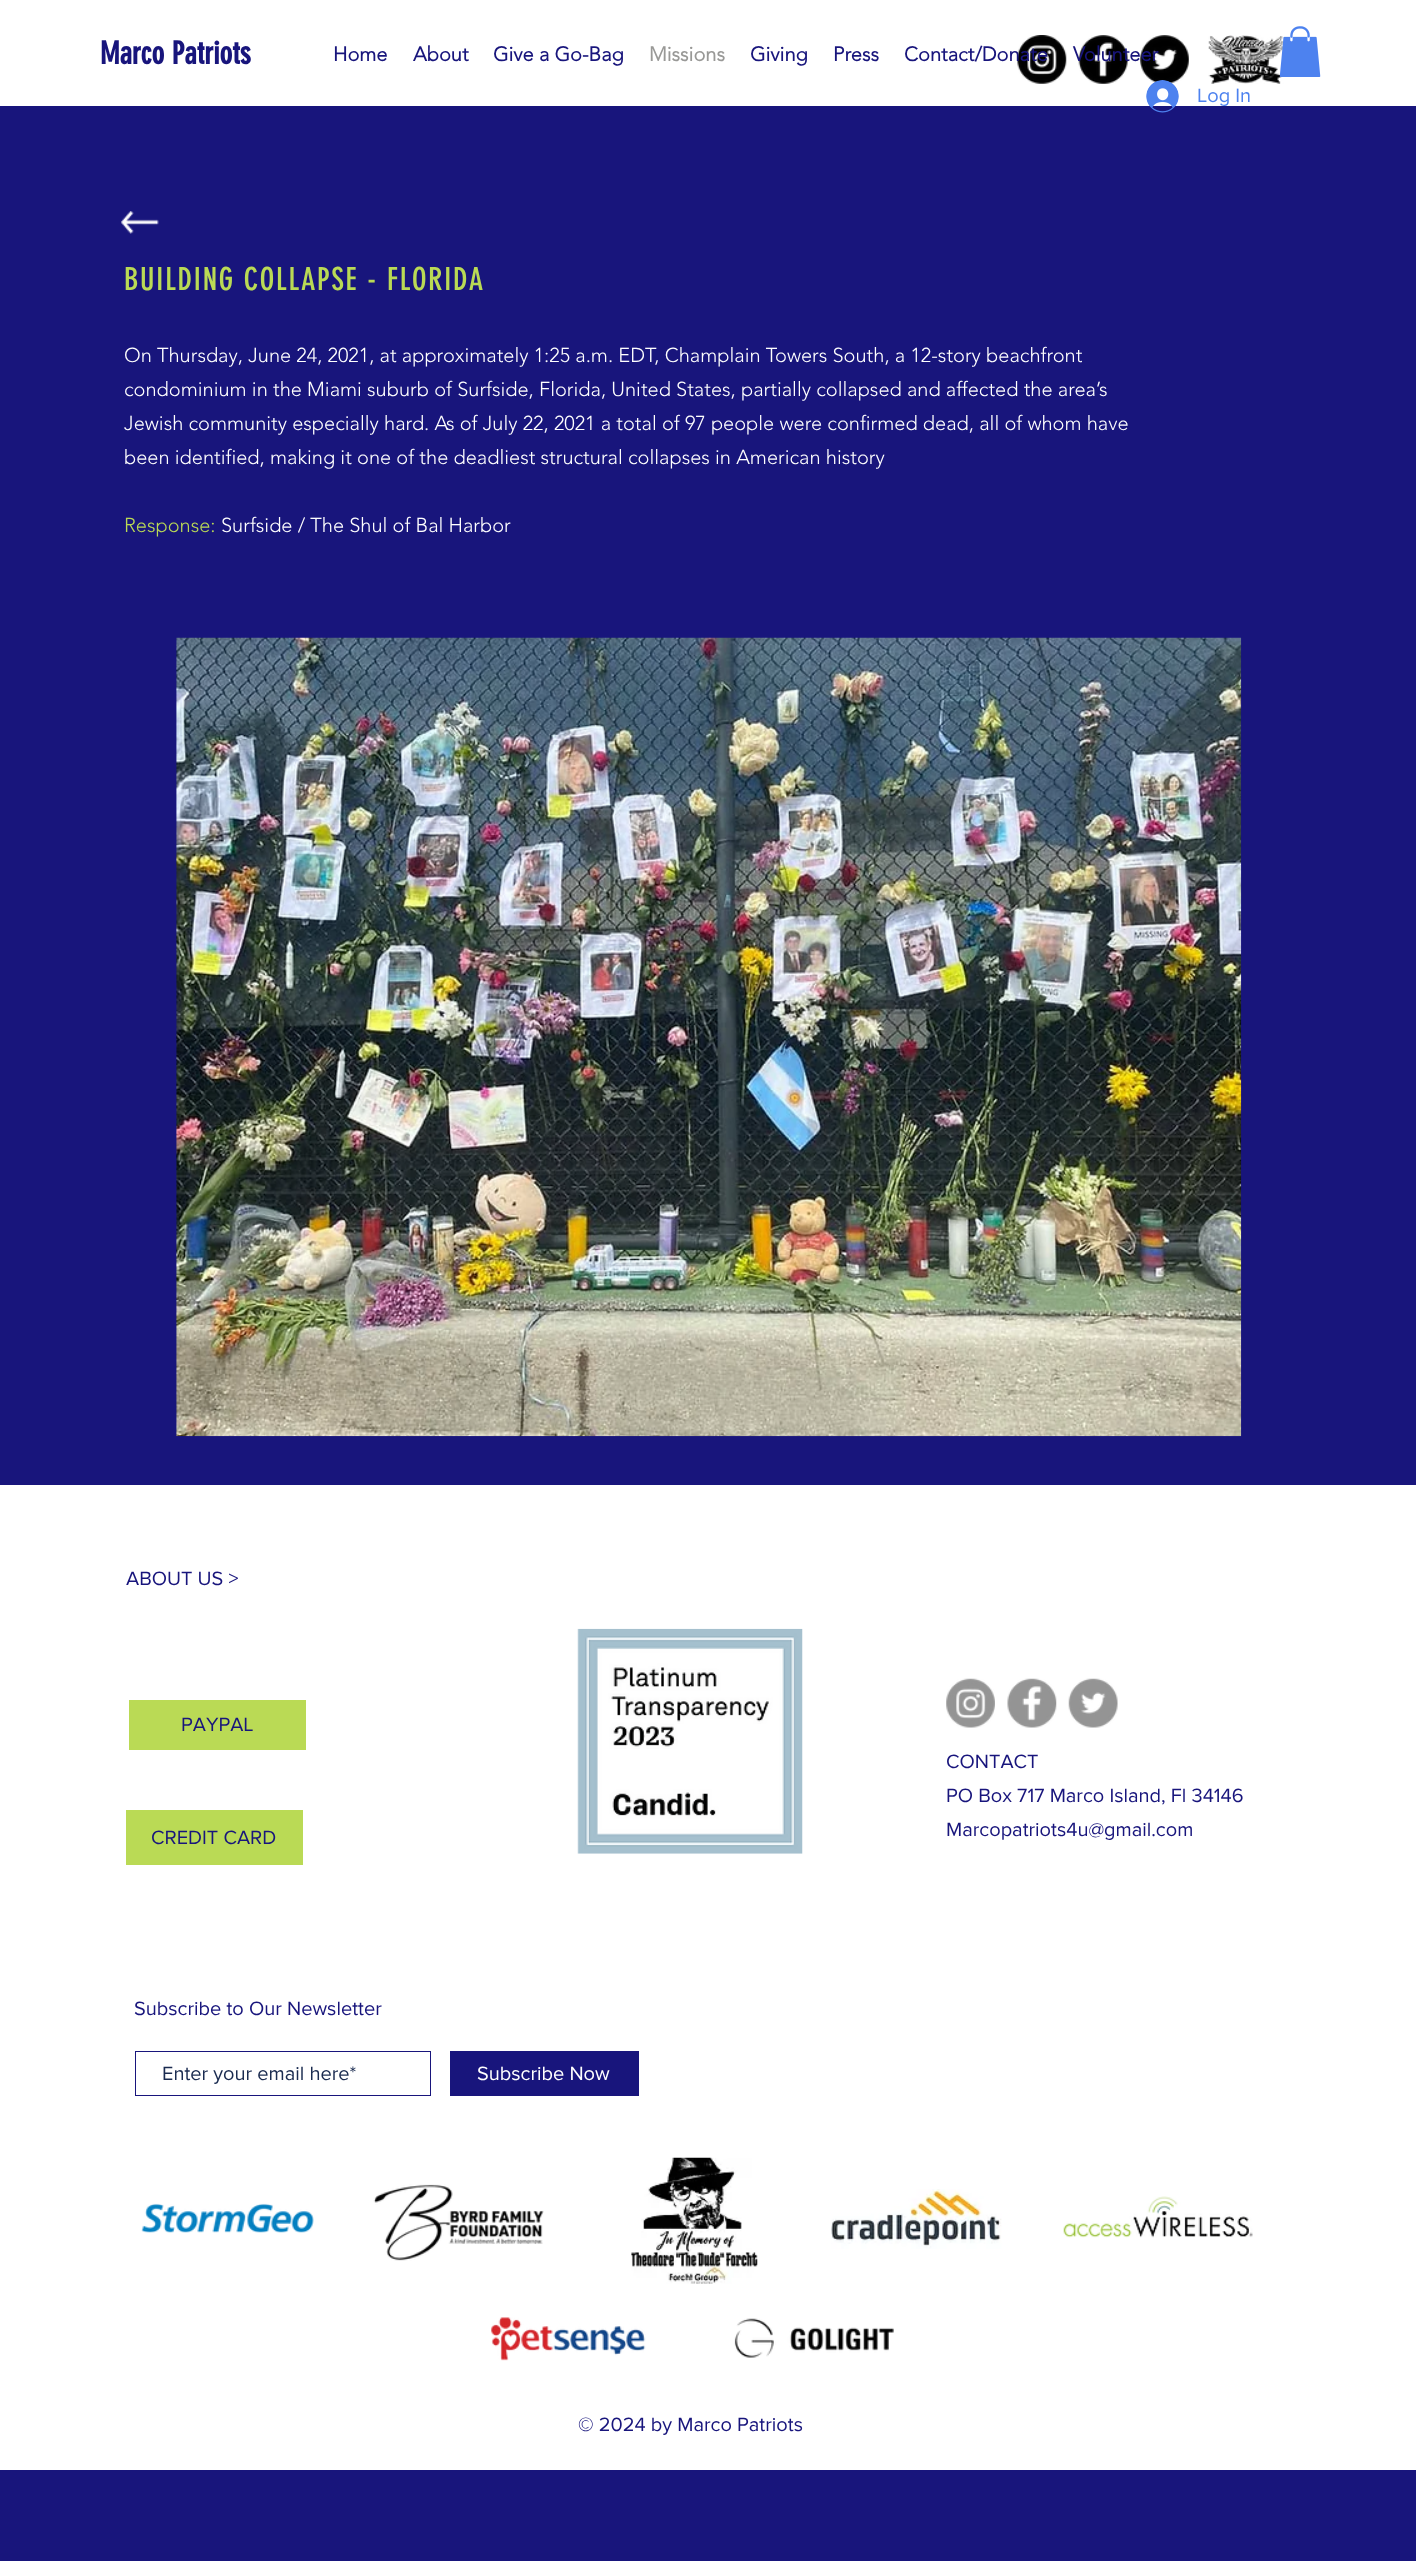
<svg xmlns="http://www.w3.org/2000/svg" width="1416" height="2561" viewBox="0 0 1416 2561">
  <rect width="100%" height="100%" fill="rgb(24,21,124)"/>
  <rect x="0" y="0" width="1416" height="106" fill="rgb(255,255,255)"/>
  <text x="100" y="64" font-family="'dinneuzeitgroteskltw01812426'" font-size="31.25" font-weight="bold" fill="rgb(24,21,124)">Marco Patriots</text>
  <g font-family="'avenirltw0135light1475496'" font-size="20" font-weight="bold" fill="rgb(24,21,124)">
    <text x="333" y="61">Home</text>
    <text x="413" y="61">About</text>
    <text x="493" y="61">Give a Go-Bag</text>
  </g>
  <text x="649" y="61" font-family="'avenirltw0135light1475496'" font-size="20" font-weight="bold" fill="rgb(153,153,151)">Missions</text>
  <g font-family="'avenirltw0135light1475496'" font-size="20" font-weight="bold" fill="rgb(24,21,124)">
    <text x="750" y="61">Giving</text>
    <text x="833" y="61">Press</text>
  </g>
  <image x="1017" y="35" width="50" height="49" href="pic1.png"/>
  <text x="904" y="61" font-family="'avenirltw0135light1475496'" font-size="20" font-weight="bold" fill="rgb(24,21,124)">Contact/Donate</text>
  <image x="1078" y="35" width="50" height="49" href="pic2.png"/>
  <image x="1140" y="35" width="49" height="49" href="pic3.png"/>
  <text x="1073" y="61" font-family="'avenirltw0135light1475496'" font-size="20" font-weight="bold" fill="rgb(24,21,124)">Volunteer</text>
  <image x="1208" y="35" width="76" height="49" href="pic4.png"/>
  <image x="1279" y="26" width="42" height="51" href="pic5.png"/>
  <image x="1146" y="80" width="33" height="33" href="pic6.png"/>
  <text x="1197" y="102" font-family="'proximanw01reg'" font-size="20" fill="rgb(77,130,239)">Log In</text>
  <image x="121" y="211" width="38" height="23" href="pic7.png"/>
  <text x="124" y="290" font-family="'dinneuzeitgroteskltw01812426'" font-size="31.25" letter-spacing="1.55" fill="rgb(186,218,85)">BUILDING COLLAPSE - FLORIDA</text>
  <g font-family="'avenirltw0135light1475496'" font-size="20" font-weight="300" fill="rgb(255,255,255)">
    <text>
      <tspan x="124" y="362">On Thursday, June 24, 2021, at approximately 1:25 a.m. EDT, Champlain Towers South, a 12-story beachfront</tspan>
      <tspan x="124" y="396">condominium in the Miami suburb of Surfside, Florida, United States, partially collapsed and affected the area’s</tspan>
      <tspan x="124" y="430">Jewish community especially hard. As of July 22, 2021 a total of 97 people were confirmed dead, all of whom have</tspan>
      <tspan x="124" y="464">been identified, making it one of the deadliest structural collapses in American history</tspan>
    </text>
  </g>
  <text x="124" y="532" font-family="'avenirltw0135light1475496'" font-size="20" font-weight="300" fill="rgb(186,218,85)">Response:</text>
  <text x="221" y="532" font-family="'avenirltw0135light1475496'" font-size="20" font-weight="300" fill="rgb(255,255,255)">Surfside / The Shul of Bal Harbor</text>
  <image x="176" y="637" width="1066" height="800" href="pic8.png"/>
  <rect x="0" y="1485" width="1416" height="985" fill="rgb(255,255,255)"/>
  <text x="126" y="1585" font-family="'proximanw01reg'" font-size="20" fill="rgb(24,21,124)">ABOUT US &gt;</text>
  <rect x="129" y="1700" width="177" height="50" fill="rgb(186,218,85)"/>
  <text x="181" y="1731" font-family="'proximanw01reg'" font-size="20" fill="rgb(24,21,124)">PAYPAL</text>
  <image x="577" y="1628" width="226" height="226" href="pic9.png"/>
  <image x="946" y="1678" width="49" height="50" href="pic10.png"/>
  <image x="1007" y="1678" width="50" height="50" href="pic11.png"/>
  <image x="1068" y="1678" width="50" height="50" href="pic12.png"/>
  <rect x="126" y="1810" width="177" height="55" fill="rgb(186,218,85)"/>
  <g font-family="'proximanw01reg'" font-size="20" fill="rgb(24,21,124)">
    <text x="151" y="1844">CREDIT CARD</text>
    <text>
      <tspan x="946" y="1768">CONTACT</tspan>
      <tspan x="946" y="1802">PO Box 717 Marco Island, Fl 34146</tspan>
      <tspan x="946" y="1836">Marcopatriots4u@gmail.com</tspan>
    </text>
    <text x="134" y="2015">Subscribe to Our Newsletter</text>
  </g>
  <rect x="135.5" y="2051.5" width="295" height="44" fill="none" stroke="rgb(24,21,124)"/>
  <text x="162" y="2080" font-family="'proximanw01reg'" font-size="20" fill="rgb(26,43,80)">Enter your email here*</text>
  <rect x="450" y="2051" width="189" height="45" fill="rgb(24,21,124)"/>
  <text x="477" y="2080" font-family="'proximanw01reg'" font-size="20" fill="rgb(255,255,255)">Subscribe Now</text>
  <image x="141" y="2203" width="173" height="30" href="pic13.png"/>
  <image x="373" y="2184" width="171" height="77" href="pic14.png"/>
  <image x="631" y="2157" width="127" height="127" href="pic15.png"/>
  <image x="831" y="2189" width="171" height="60" href="pic16.png"/>
  <image x="1063" y="2196" width="190" height="42" href="pic17.png"/>
  <image x="491" y="2317" width="155" height="44" href="pic18.png"/>
  <image x="734" y="2318" width="160" height="40" href="pic19.png"/>
  <text x="578" y="2431" font-family="'proximanw01reg'" font-size="20" fill="rgb(24,21,124)">© 2024 by Marco Patriots</text>
</svg>
